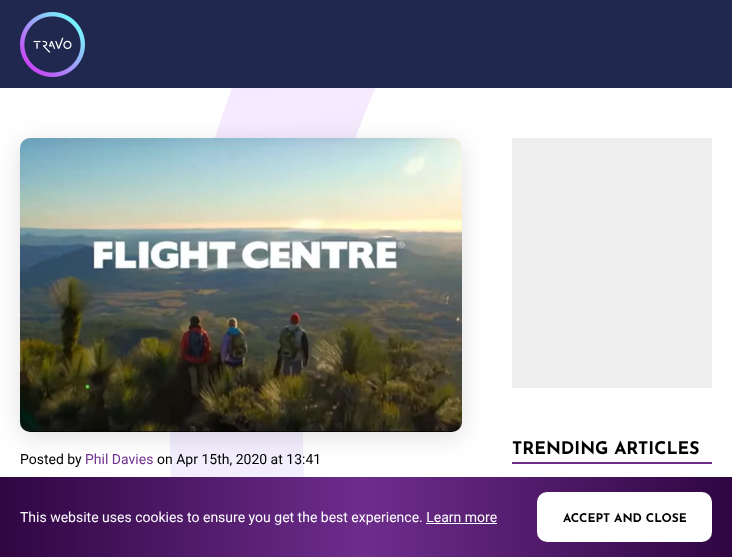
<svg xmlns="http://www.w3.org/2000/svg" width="732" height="557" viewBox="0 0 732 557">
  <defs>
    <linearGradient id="g1" gradientUnits="userSpaceOnUse" x1="0" y1="517" x2="732" y2="517"><stop offset="0" stop-color="rgb(47,6,66)"/><stop offset="0.5" stop-color="rgb(110,45,141)"/><stop offset="1" stop-color="rgb(47,6,66)"/></linearGradient>
  </defs>
  <rect width="100%" height="100%" fill="rgb(255,255,255)"/>
  <rect x="0" y="0" width="732" height="88" fill="rgb(33,40,79)"/>
  <image x="20" y="12" width="65" height="65" href="pic1.png"/>
  <image x="170" y="88" width="206" height="389" href="pic2.png"/>
  <rect x="512" y="138" width="200" height="250" fill="rgb(238,238,238)"/>
  <rect x="512" y="462" width="200" height="2" fill="rgb(110,45,141)"/>
  <text x="512" y="454" font-family="Josefin Sans" font-size="17.5" font-weight="bold" fill="rgb(0,0,0)">TRENDING ARTICLES</text>
  <rect x="20" y="143" width="442" height="294" rx="10" fill="rgba(0,0,0,0.12)" filter="blur(12px)"/>
  <image x="20" y="138" width="442" height="294" href="pic3.png"/>
  <text x="20" y="464" font-family="Roboto" font-size="14" fill="rgb(0,0,0)">Posted by</text>
  <text x="85" y="464" font-family="Roboto" font-size="14" fill="rgb(114,49,145)">Phil Davies</text>
  <text x="157" y="464" font-family="Roboto" font-size="14" fill="rgb(0,0,0)">on Apr 15th, 2020 at 13:41</text>
  <rect x="0" y="477" width="732" height="80" fill="url(#g1)"/>
  <text x="20" y="522" font-family="Roboto" font-size="14" fill="rgb(255,255,255)">This website uses cookies to ensure you get the best experience. Learn more</text>
  <rect x="426" y="523" width="71" height="1" fill="rgb(255,255,255)"/>
  <rect x="537" y="492" width="175" height="50" rx="10" fill="rgb(255,255,255)"/>
  <text x="563" y="522" font-family="Josefin Sans" font-size="12" font-weight="bold" fill="rgb(0,0,0)">ACCEPT AND CLOSE</text>
</svg>
